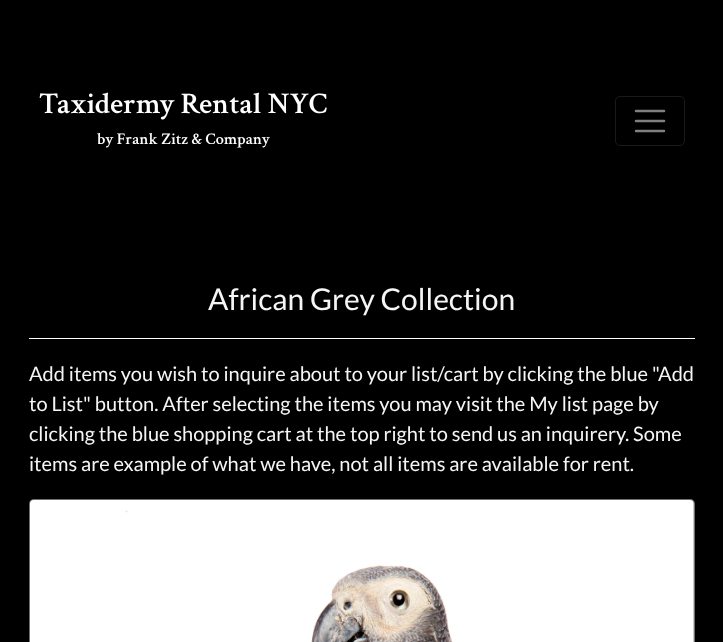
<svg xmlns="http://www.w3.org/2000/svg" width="723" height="642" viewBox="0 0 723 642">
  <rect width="100%" height="100%" fill="rgb(0,0,0)"/>
  <text x="39" y="113" font-family="Crimson Text" font-size="30" font-weight="600" fill="rgb(255,255,255)">Taxidermy Rental NYC</text>
  <text x="97" y="144" font-family="Crimson Text" font-size="16.25" font-weight="600" fill="rgb(255,255,255)">by Frank Zitz &amp; Company</text>
  <rect x="615.5" y="96.5" width="69" height="49" rx="4.5" fill="none" stroke="rgb(26,26,26)"/>
  <path d="M636 111H664M636 121H664M636 131H664" fill="none" stroke="rgb(128,128,128)" stroke-width="2.5" stroke-linecap="round"/>
  <text x="208" y="310" font-family="Lato" font-size="30" fill="rgb(245,245,245)">African Grey Collection</text>
  <rect x="29" y="338" width="666" height="1" fill="rgb(255,255,255)"/>
  <g font-family="Lato" font-size="20" fill="rgb(245,245,245)">
    <text>
      <tspan x="29" y="381">Add items you wish to inquire about to your list/cart by clicking the blue "Add</tspan>
      <tspan x="29" y="411">to List" button. After selecting the items you may visit the My list page by</tspan>
      <tspan x="29" y="441">clicking the blue shopping cart at the top right to send us an inquirery. Some</tspan>
      <tspan x="29" y="471">items are example of what we have, not all items are available for rent.</tspan>
    </text>
  </g>
  <rect x="29" y="499" width="666" height="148" rx="5" fill="rgb(128,128,128)"/>
  <rect x="29.5" y="499.5" width="665" height="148" rx="4.5" fill="none" stroke="rgba(0,0,0,0.12)"/>
  <image x="30" y="500" width="664" height="142" href="pic1.png"/>
</svg>
